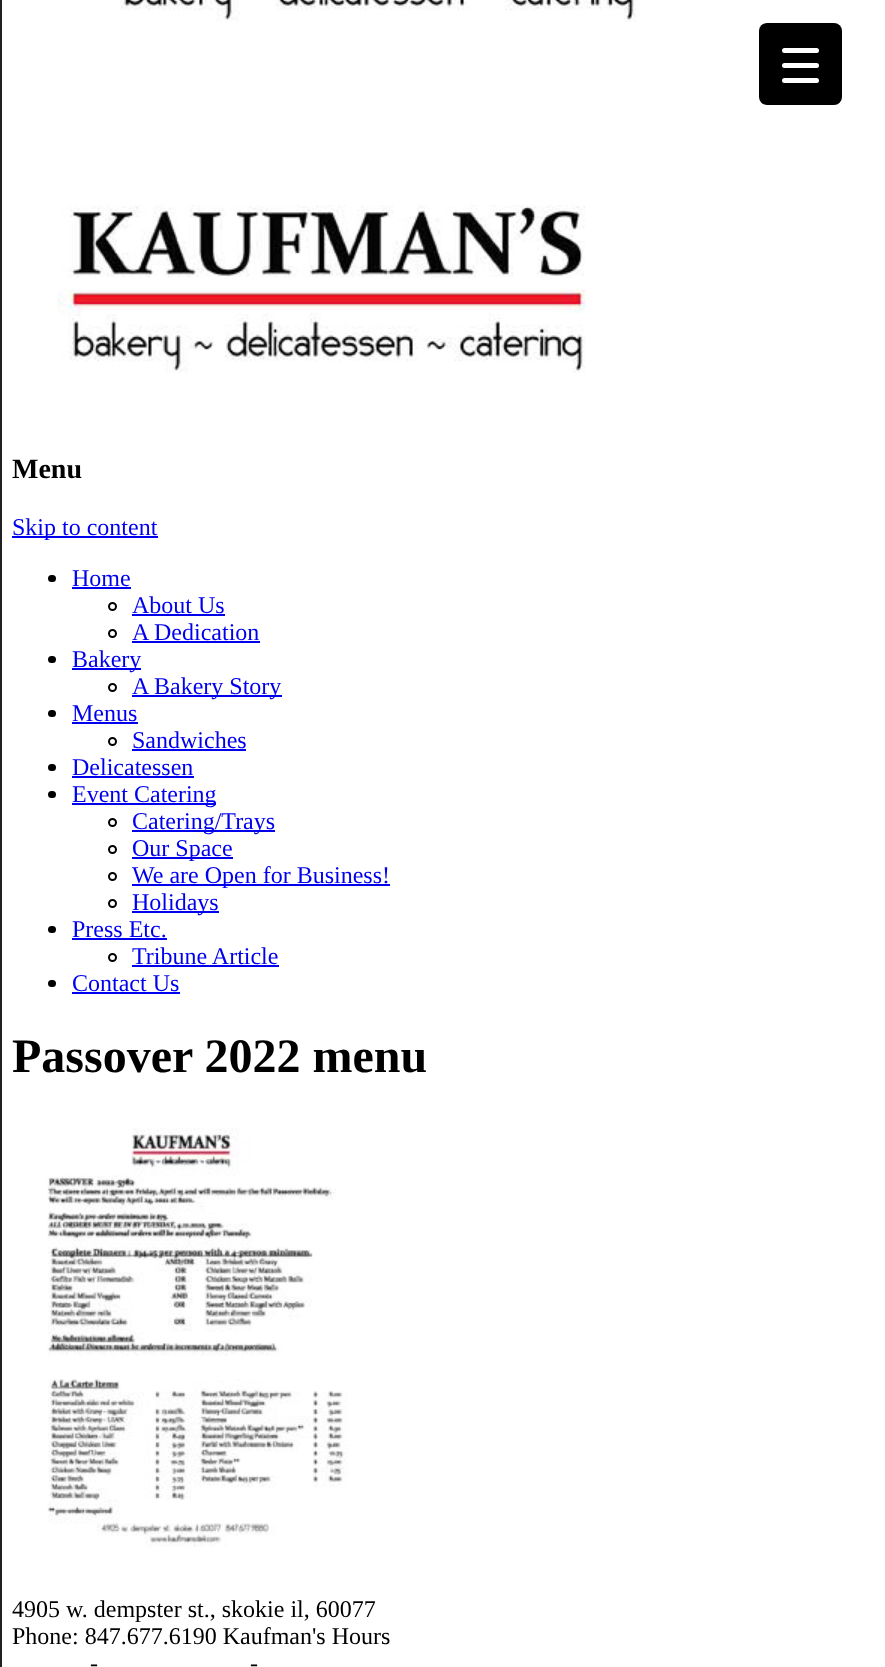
<svg xmlns="http://www.w3.org/2000/svg" width="885" height="1667" viewBox="0 0 885 1667">
  <rect width="100%" height="100%" fill="rgb(255,255,255)"/>
  <rect x="0" y="0" width="2" height="1667" fill="rgb(33,33,33)"/>
  <rect x="759" y="23" width="83" height="82" rx="8" fill="rgb(0,0,0)"/>
  <rect x="782" y="63" width="37" height="5" rx="2.5" fill="rgb(255,255,255)"/>
  <rect x="782" y="48" width="37" height="5" rx="2.5" fill="rgb(255,255,255)"/>
  <rect x="782" y="78" width="37" height="5" rx="2.5" fill="rgb(255,255,255)"/>
  <image x="120" y="0" width="516" height="22" href="pic1.png"/>
  <image x="57" y="205" width="529" height="168" href="pic2.png"/>
  <text x="12" y="478" font-family="Liberation Serif" font-size="28" font-weight="bold" fill="rgb(0,0,0)">Menu</text>
  <rect x="12" y="536" width="146" height="2" fill="rgb(0,0,238)"/>
  <text x="12" y="535" font-family="Liberation Serif" font-size="24" fill="rgb(0,0,238)">Skip to content</text>
  <rect x="48" y="575" width="8" height="7" rx="3.5" fill="rgb(0,0,0)"/>
  <text x="72" y="586" font-family="Liberation Serif" font-size="24" fill="rgb(0,0,238)">Home</text>
  <rect x="72" y="587" width="59" height="2" fill="rgb(0,0,238)"/>
  <circle cx="112.5" cy="606.5" r="3.5" fill="none" stroke="rgb(0,0,0)" stroke-width="2"/>
  <text x="132" y="613" font-family="Liberation Serif" font-size="24" fill="rgb(0,0,238)">About Us</text>
  <rect x="132" y="614" width="93" height="2" fill="rgb(0,0,238)"/>
  <circle cx="112.5" cy="633.5" r="3.5" fill="none" stroke="rgb(0,0,0)" stroke-width="2"/>
  <text x="132" y="640" font-family="Liberation Serif" font-size="24" fill="rgb(0,0,238)">A Dedication</text>
  <rect x="132" y="641" width="128" height="2" fill="rgb(0,0,238)"/>
  <rect x="48" y="656" width="8" height="7" rx="3.5" fill="rgb(0,0,0)"/>
  <rect x="72" y="668" width="69" height="2" fill="rgb(0,0,238)"/>
  <text x="72" y="667" font-family="Liberation Serif" font-size="24" fill="rgb(0,0,238)">Bakery</text>
  <circle cx="112.5" cy="687.5" r="3.5" fill="none" stroke="rgb(0,0,0)" stroke-width="2"/>
  <rect x="132" y="695" width="150" height="2" fill="rgb(0,0,238)"/>
  <text x="132" y="694" font-family="Liberation Serif" font-size="24" fill="rgb(0,0,238)">A Bakery Story</text>
  <rect x="48" y="710" width="8" height="7" rx="3.5" fill="rgb(0,0,0)"/>
  <text x="72" y="721" font-family="Liberation Serif" font-size="24" fill="rgb(0,0,238)">Menus</text>
  <rect x="72" y="722" width="66" height="2" fill="rgb(0,0,238)"/>
  <circle cx="112.5" cy="741.5" r="3.5" fill="none" stroke="rgb(0,0,0)" stroke-width="2"/>
  <text x="132" y="748" font-family="Liberation Serif" font-size="24" fill="rgb(0,0,238)">Sandwiches</text>
  <rect x="132" y="749" width="114" height="2" fill="rgb(0,0,238)"/>
  <rect x="48" y="764" width="8" height="7" rx="3.5" fill="rgb(0,0,0)"/>
  <text x="72" y="775" font-family="Liberation Serif" font-size="24" fill="rgb(0,0,238)">Delicatessen</text>
  <rect x="72" y="776" width="122" height="2" fill="rgb(0,0,238)"/>
  <rect x="48" y="791" width="8" height="7" rx="3.5" fill="rgb(0,0,0)"/>
  <rect x="72" y="803" width="144" height="2" fill="rgb(0,0,238)"/>
  <text x="72" y="802" font-family="Liberation Serif" font-size="24" fill="rgb(0,0,238)">Event Catering</text>
  <circle cx="112.5" cy="822.5" r="3.5" fill="none" stroke="rgb(0,0,0)" stroke-width="2"/>
  <rect x="132" y="830" width="143" height="2" fill="rgb(0,0,238)"/>
  <text x="132" y="829" font-family="Liberation Serif" font-size="24" fill="rgb(0,0,238)">Catering/Trays</text>
  <circle cx="112.5" cy="849.5" r="3.5" fill="none" stroke="rgb(0,0,0)" stroke-width="2"/>
  <rect x="132" y="857" width="101" height="2" fill="rgb(0,0,238)"/>
  <text x="132" y="856" font-family="Liberation Serif" font-size="24" fill="rgb(0,0,238)">Our Space</text>
  <circle cx="112.5" cy="876.5" r="3.5" fill="none" stroke="rgb(0,0,0)" stroke-width="2"/>
  <rect x="132" y="884" width="258" height="2" fill="rgb(0,0,238)"/>
  <text x="132" y="883" font-family="Liberation Serif" font-size="24" fill="rgb(0,0,238)">We are Open for Business!</text>
  <circle cx="112.5" cy="903.5" r="3.5" fill="none" stroke="rgb(0,0,0)" stroke-width="2"/>
  <rect x="132" y="911" width="87" height="2" fill="rgb(0,0,238)"/>
  <text x="132" y="910" font-family="Liberation Serif" font-size="24" fill="rgb(0,0,238)">Holidays</text>
  <rect x="48" y="926" width="8" height="7" rx="3.5" fill="rgb(0,0,0)"/>
  <text x="72" y="937" font-family="Liberation Serif" font-size="24" fill="rgb(0,0,238)">Press Etc.</text>
  <rect x="72" y="938" width="95" height="2" fill="rgb(0,0,238)"/>
  <circle cx="112.5" cy="957.5" r="3.5" fill="none" stroke="rgb(0,0,0)" stroke-width="2"/>
  <text x="132" y="964" font-family="Liberation Serif" font-size="24" fill="rgb(0,0,238)">Tribune Article</text>
  <rect x="132" y="965" width="147" height="2" fill="rgb(0,0,238)"/>
  <rect x="48" y="980" width="8" height="7" rx="3.5" fill="rgb(0,0,0)"/>
  <text x="72" y="991" font-family="Liberation Serif" font-size="24" fill="rgb(0,0,238)">Contact Us</text>
  <rect x="72" y="992" width="108" height="2" fill="rgb(0,0,238)"/>
  <text x="12" y="1072" font-family="Liberation Serif" font-size="48" font-weight="bold" fill="rgb(0,0,0)">Passover 2022 menu</text>
  <image x="47" y="1128" width="301" height="419" href="pic3.png"/>
  <g font-family="Liberation Serif" font-size="24" fill="rgb(0,0,0)">
    <text>
      <tspan x="12" y="1617">4905 w. dempster st., skokie il, 60077</tspan>
      <tspan x="12" y="1644">Phone: 847.677.6190 Kaufman's Hours</tspan>
    </text>
    <text x="90" y="1671">-</text>
    <text x="250" y="1671">-</text>
  </g>
</svg>
